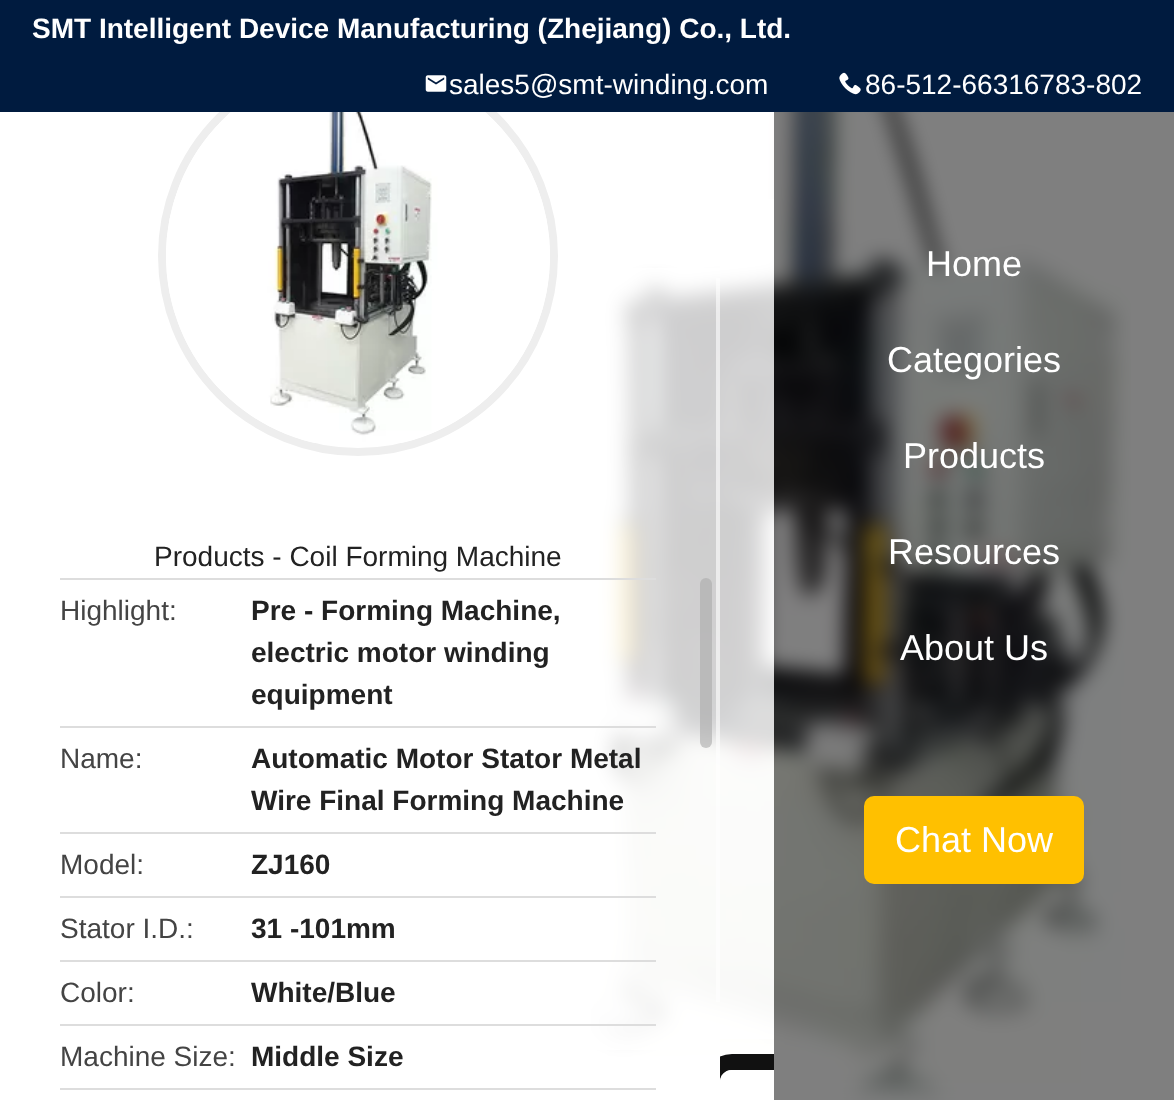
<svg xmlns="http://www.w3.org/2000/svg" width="1174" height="1100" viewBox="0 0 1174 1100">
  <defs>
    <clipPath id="clip1"><rect x="720" y="56" width="54" height="1044"/></clipPath>
  </defs>
  <rect width="100%" height="100%" fill="rgb(255,255,255)"/>
  <circle cx="358" cy="256" r="196" fill="none" stroke="rgb(238,238,238)" stroke-width="8"/>
  <rect x="0" y="0" width="1174" height="112" fill="rgb(0,27,63)"/>
  <text x="32" y="38" font-family="Liberation Sans" font-size="28" font-weight="bold" fill="rgb(255,255,255)">SMT Intelligent Device Manufacturing (Zhejiang) Co., Ltd.</text>
  <image x="425" y="75" width="22" height="17" href="pic1.png"/>
  <text x="449" y="94" font-family="Liberation Sans" font-size="28" fill="rgb(255,255,255)">sales5@smt-winding.com</text>
  <image x="839" y="72" width="22" height="23" href="pic2.png"/>
  <text x="865" y="94" font-family="Liberation Sans" font-size="28" fill="rgb(255,255,255)">86-512-66316783-802</text>
  <image x="591" y="112" width="540" height="988" href="pic3.png"/>
  <rect x="720" y="199" width="54" height="840" fill="rgba(255,255,255,0.8)"/>
  <rect x="774" y="112" width="400" height="988" fill="rgba(0,0,0,0.5)"/>
  <g clip-path="url(#clip1)">
    <rect x="712" y="1062" width="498" height="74" rx="20" fill="none" stroke="rgb(17,17,17)" stroke-width="16"/>
  </g>
  <image x="720" y="1070" width="12" height="12" href="pic4.png"/>
  <rect x="591" y="268" width="129" height="782" fill="rgba(255,255,255,0.8)"/>
  <rect x="716" y="278" width="4" height="724" fill="rgba(255,255,255,0.6)"/>
  <image x="166" y="112" width="384" height="331" href="pic5.png"/>
  <text x="154" y="566" font-family="Liberation Sans" font-size="28" fill="rgb(34,34,34)">Products - Coil Forming Machine</text>
  <rect x="60" y="578" width="596" height="2" fill="rgb(221,221,221)"/>
  <text x="60" y="620" font-family="Liberation Sans" font-size="28" fill="rgb(68,68,68)">Highlight:</text>
  <g font-family="Liberation Sans" font-size="28" font-weight="bold" fill="rgb(34,34,34)">
    <text>
      <tspan x="251" y="620">Pre - Forming Machine,</tspan>
      <tspan x="251" y="662">electric motor winding</tspan>
      <tspan x="251" y="704">equipment</tspan>
    </text>
  </g>
  <rect x="60" y="726" width="596" height="2" fill="rgb(221,221,221)"/>
  <text x="60" y="768" font-family="Liberation Sans" font-size="28" fill="rgb(68,68,68)">Name:</text>
  <g font-family="Liberation Sans" font-size="28" font-weight="bold" fill="rgb(34,34,34)">
    <text>
      <tspan x="251" y="768">Automatic Motor Stator Metal</tspan>
      <tspan x="251" y="810">Wire Final Forming Machine</tspan>
    </text>
  </g>
  <rect x="60" y="832" width="596" height="2" fill="rgb(221,221,221)"/>
  <text x="60" y="874" font-family="Liberation Sans" font-size="28" fill="rgb(68,68,68)">Model:</text>
  <text x="251" y="874" font-family="Liberation Sans" font-size="28" font-weight="bold" fill="rgb(34,34,34)">ZJ160</text>
  <rect x="60" y="896" width="596" height="2" fill="rgb(221,221,221)"/>
  <text x="60" y="938" font-family="Liberation Sans" font-size="28" fill="rgb(68,68,68)">Stator I.D.:</text>
  <text x="251" y="938" font-family="Liberation Sans" font-size="28" font-weight="bold" fill="rgb(34,34,34)">31 -101mm</text>
  <rect x="60" y="960" width="596" height="2" fill="rgb(221,221,221)"/>
  <text x="60" y="1002" font-family="Liberation Sans" font-size="28" fill="rgb(68,68,68)">Color:</text>
  <text x="251" y="1002" font-family="Liberation Sans" font-size="28" font-weight="bold" fill="rgb(34,34,34)">White/Blue</text>
  <rect x="60" y="1024" width="596" height="2" fill="rgb(221,221,221)"/>
  <text x="60" y="1066" font-family="Liberation Sans" font-size="28" fill="rgb(68,68,68)">Machine Size:</text>
  <text x="251" y="1066" font-family="Liberation Sans" font-size="28" font-weight="bold" fill="rgb(34,34,34)">Middle Size</text>
  <rect x="60" y="1088" width="596" height="2" fill="rgb(221,221,221)"/>
  <rect x="700" y="578" width="12" height="170" rx="6" fill="rgba(170,170,170,0.6)"/>
  <g font-family="Liberation Sans" font-size="36" fill="rgb(255,255,255)">
    <text x="926" y="276">Home</text>
    <text x="887" y="372">Categories</text>
    <text x="903" y="468">Products</text>
    <text x="888" y="564">Resources</text>
    <text x="900" y="660">About Us</text>
  </g>
  <rect x="864" y="796" width="220" height="88" rx="10" fill="rgb(255,192,0)"/>
  <text x="895" y="852" font-family="Liberation Sans" font-size="36" fill="rgb(255,255,255)">Chat Now</text>
</svg>
